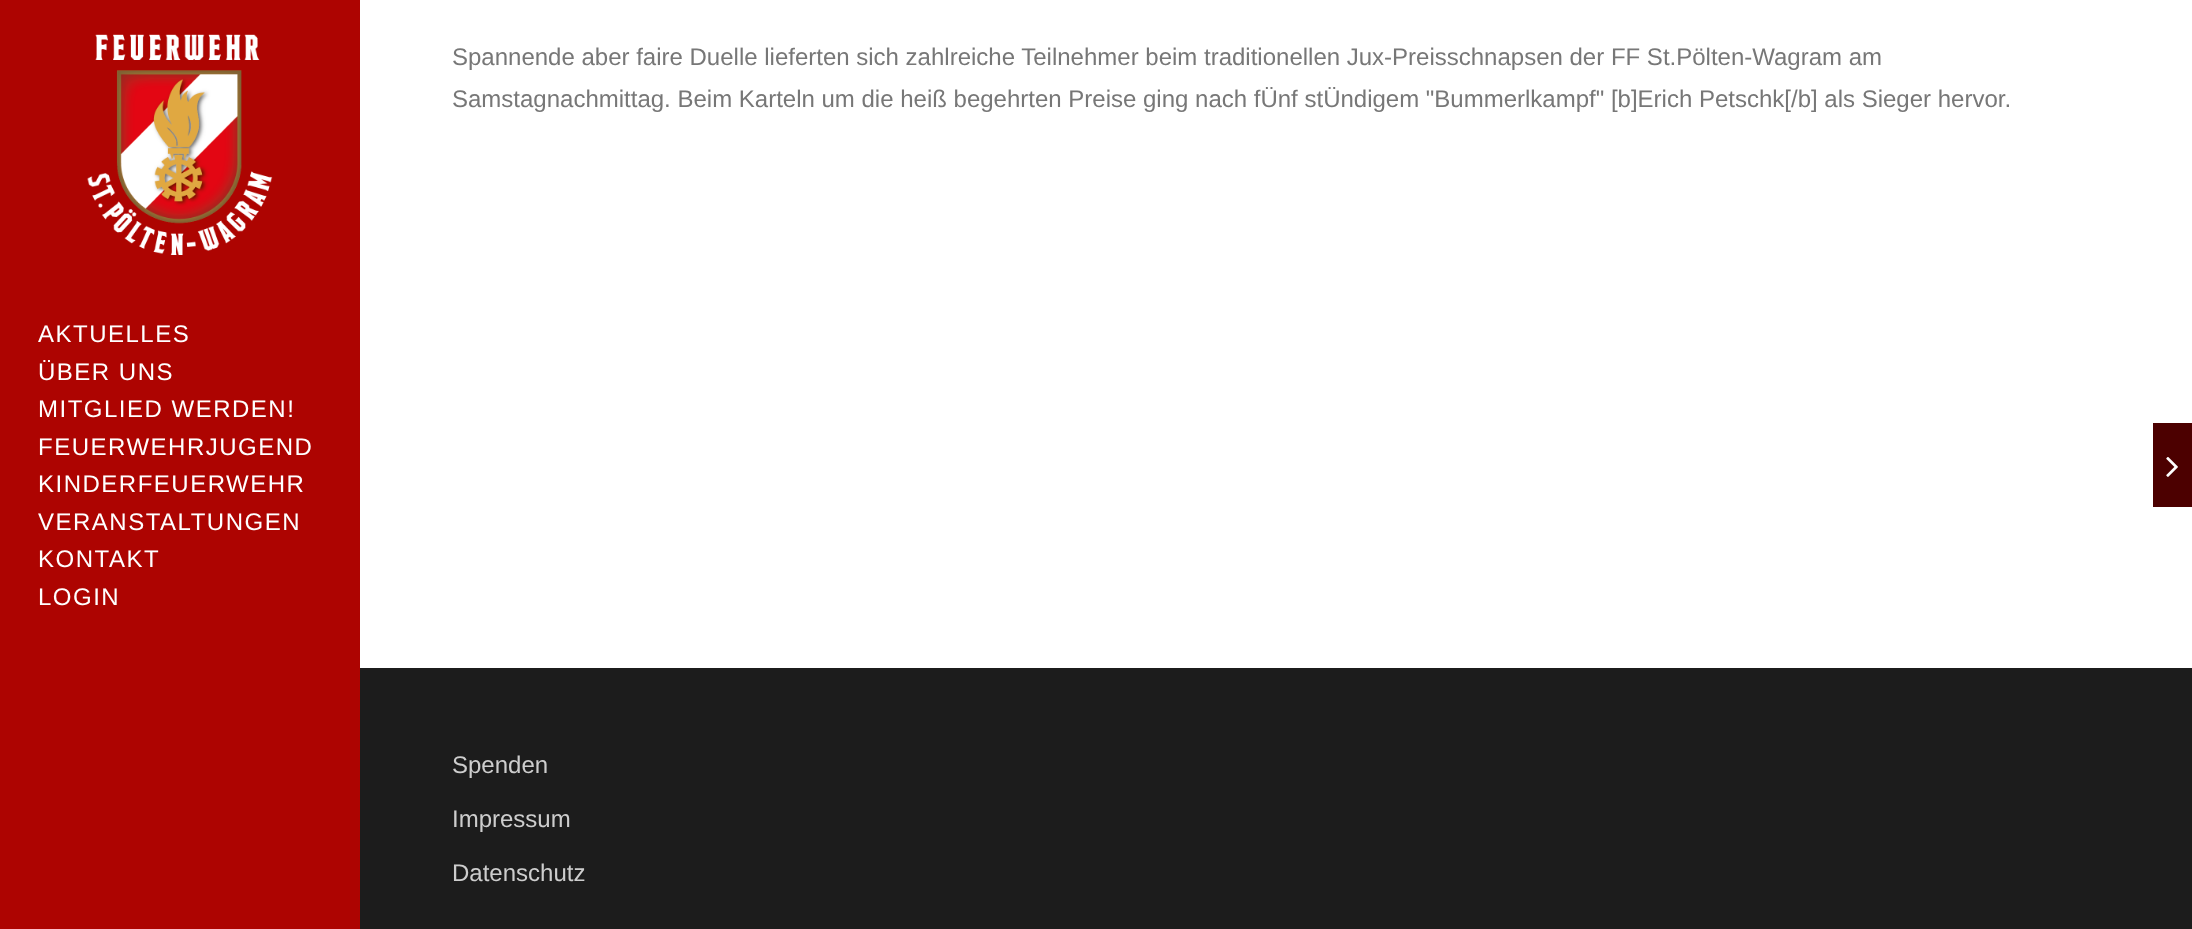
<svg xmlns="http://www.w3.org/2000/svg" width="2192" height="929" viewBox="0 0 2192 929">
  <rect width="100%" height="100%" fill="rgb(255,255,255)"/>
  <g font-family="Liberation Sans" font-size="24" fill="rgb(119,119,119)">
    <text>
      <tspan x="452" y="65">Spannende aber faire Duelle lieferten sich zahlreiche Teilnehmer beim traditionellen Jux-Preisschnapsen der FF St.Pölten-Wagram am</tspan>
      <tspan x="452" y="107">Samstagnachmittag. Beim Karteln um die heiß begehrten Preise ging nach fÜnf stÜndigem "Bummerlkampf" [b]Erich Petschk[/b] als Sieger hervor.</tspan>
    </text>
  </g>
  <rect x="2153" y="423" width="39" height="84" fill="rgb(76,0,0)"/>
  <image x="2166" y="457" width="12" height="20" href="pic1.png"/>
  <rect x="0" y="0" width="360" height="929" fill="rgb(173,4,1)"/>
  <image x="87" y="34" width="186" height="221" href="pic2.png"/>
  <g font-family="Liberation Sans" font-size="24" letter-spacing="1.5" fill="rgb(255,255,255)">
    <text>
      <tspan x="38" y="342">AKTUELLES</tspan>
      <tspan x="38" y="380">ÜBER UNS</tspan>
      <tspan x="38" y="417">MITGLIED WERDEN!</tspan>
      <tspan x="38" y="455">FEUERWEHRJUGEND</tspan>
      <tspan x="38" y="492">KINDERFEUERWEHR</tspan>
      <tspan x="38" y="530">VERANSTALTUNGEN</tspan>
      <tspan x="38" y="567">KONTAKT</tspan>
      <tspan x="38" y="605">LOGIN</tspan>
    </text>
  </g>
  <rect x="360" y="668" width="1832" height="261" fill="rgb(28,28,28)"/>
  <g font-family="Liberation Sans" font-size="24" fill="rgb(205,205,205)">
    <text x="452" y="773">Spenden</text>
    <text x="452" y="827">Impressum</text>
    <text x="452" y="881">Datenschutz</text>
  </g>
</svg>
